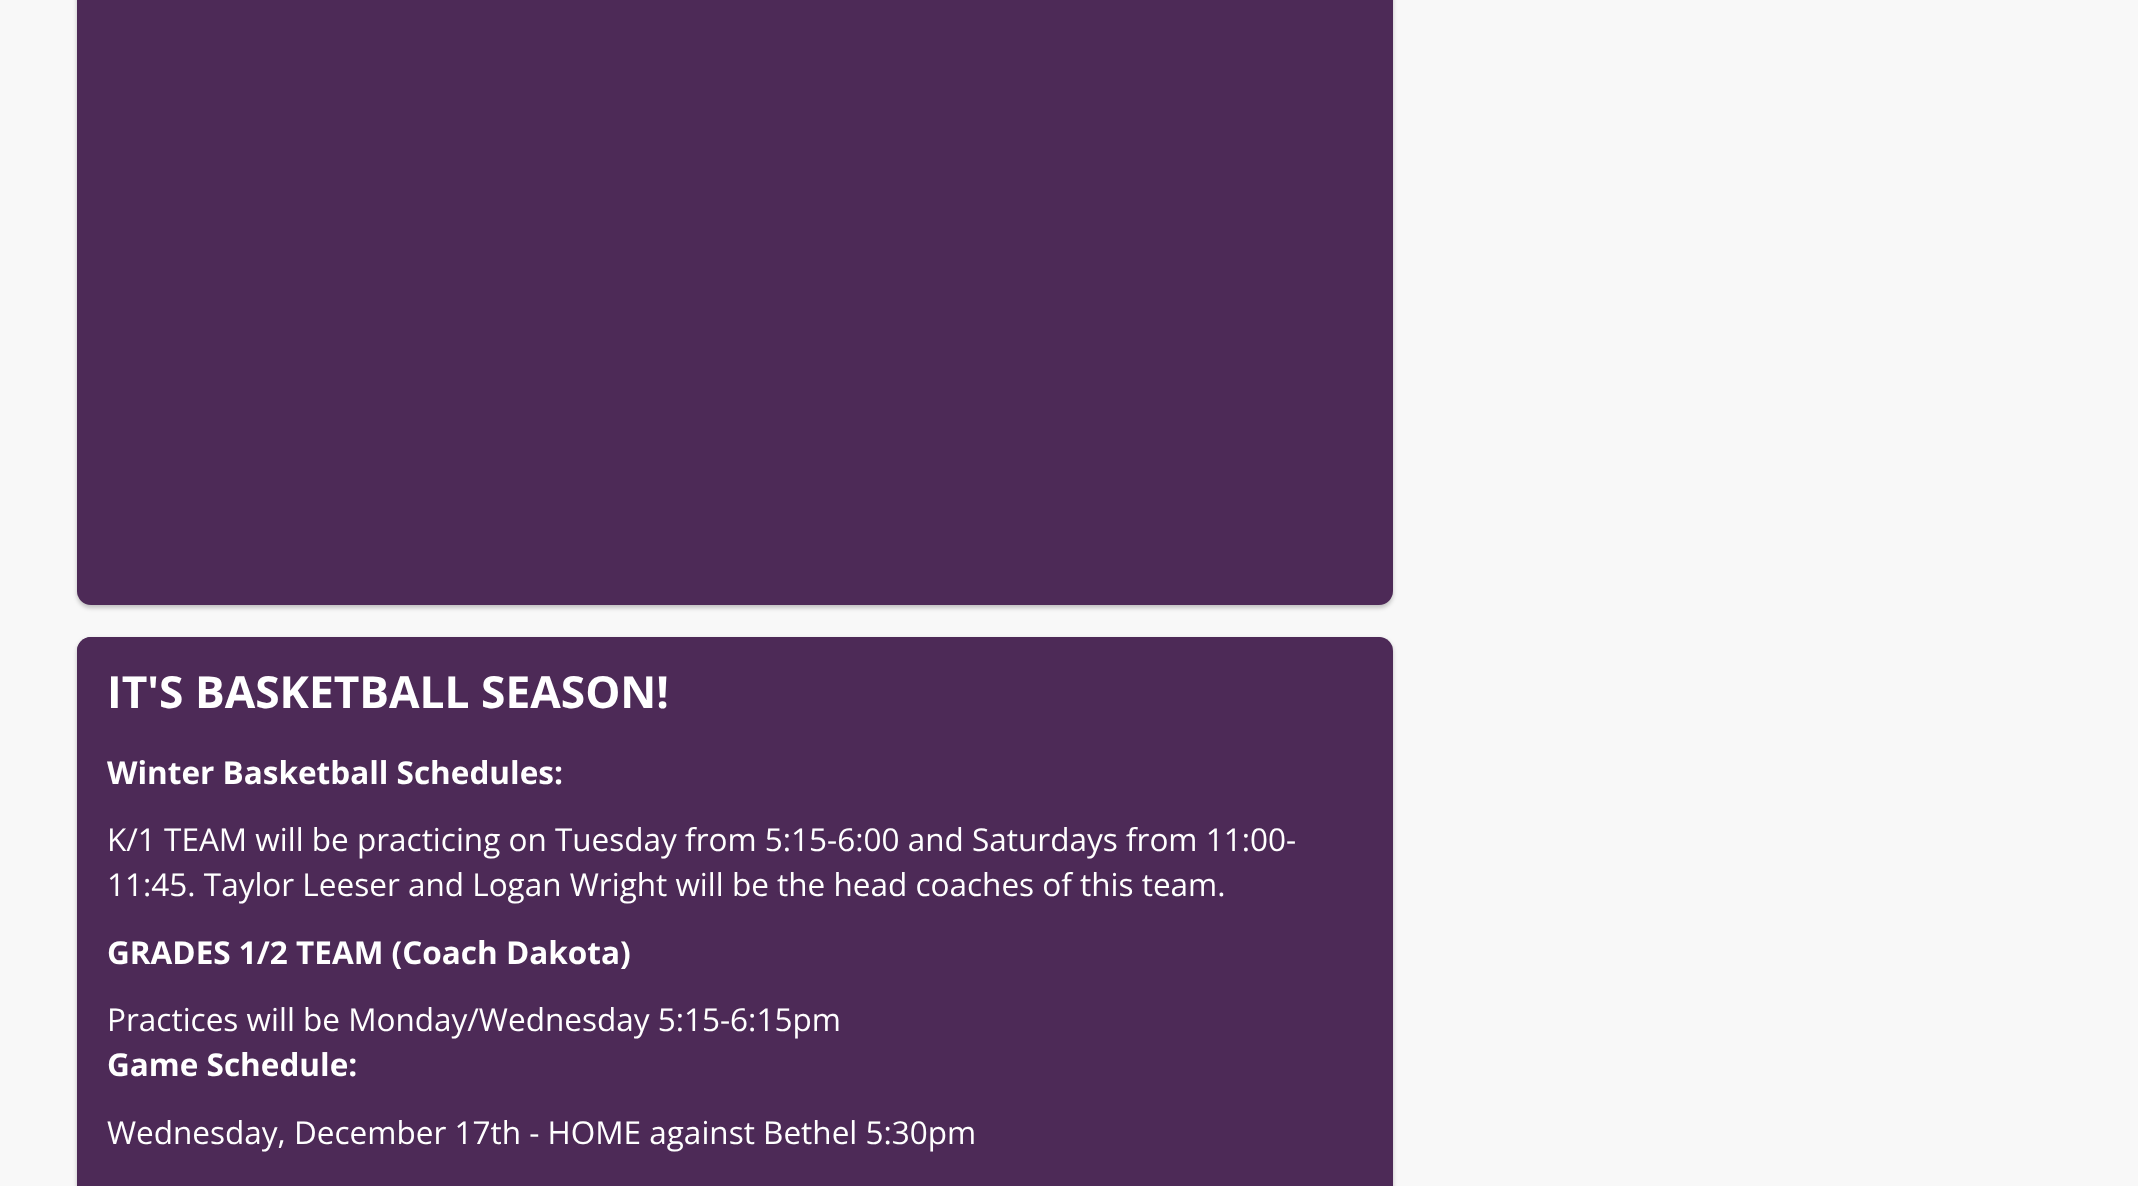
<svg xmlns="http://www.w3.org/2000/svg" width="2138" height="1186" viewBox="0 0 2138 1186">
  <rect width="100%" height="100%" fill="rgb(248,248,248)"/>
  <rect x="77" y="-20" width="1316" height="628" rx="14" fill="rgba(0,0,0,0.22)" filter="blur(2px)"/>
  <rect x="77" y="-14" width="1316" height="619" rx="14" fill="rgb(77,42,87)"/>
  <rect x="77" y="639" width="1316" height="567" rx="14" fill="rgba(0,0,0,0.22)" filter="blur(2px)"/>
  <rect x="77" y="637" width="1316" height="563" rx="14" fill="rgb(77,42,87)"/>
  <path d="M91 637H1377C1384.5 637 1391 643.5 1391 651V718H77V651C77 643.5 83.5 637 91 637Z" fill="rgb(77,42,87)"/>
  <text x="107" y="708" font-family="Open Sans" font-size="44.25" font-weight="bold" fill="rgb(255,255,255)">IT'S BASKETBALL SEASON!</text>
  <text x="107" y="784" font-family="Open Sans" font-size="31.5" font-weight="bold" fill="rgb(255,255,255)">Winter Basketball Schedules:</text>
  <g font-family="Open Sans" font-size="31.5" fill="rgb(255,255,255)">
    <text>
      <tspan x="107" y="851">K/1 TEAM will be practicing on Tuesday from 5:15-6:00 and Saturdays from 11:00-</tspan>
      <tspan x="107" y="896">11:45. Taylor Leeser and Logan Wright will be the head coaches of this team.</tspan>
    </text>
  </g>
  <text x="107" y="964" font-family="Open Sans" font-size="31.5" font-weight="bold" fill="rgb(255,255,255)">GRADES 1/2 TEAM (Coach Dakota)</text>
  <text x="107" y="1031" font-family="Open Sans" font-size="31.5" fill="rgb(255,255,255)">Practices will be Monday/Wednesday 5:15-6:15pm</text>
  <text x="107" y="1076" font-family="Open Sans" font-size="31.5" font-weight="bold" fill="rgb(255,255,255)">Game Schedule:</text>
  <text x="107" y="1144" font-family="Open Sans" font-size="31.5" fill="rgb(255,255,255)">Wednesday, December 17th - HOME against Bethel 5:30pm</text>
</svg>
